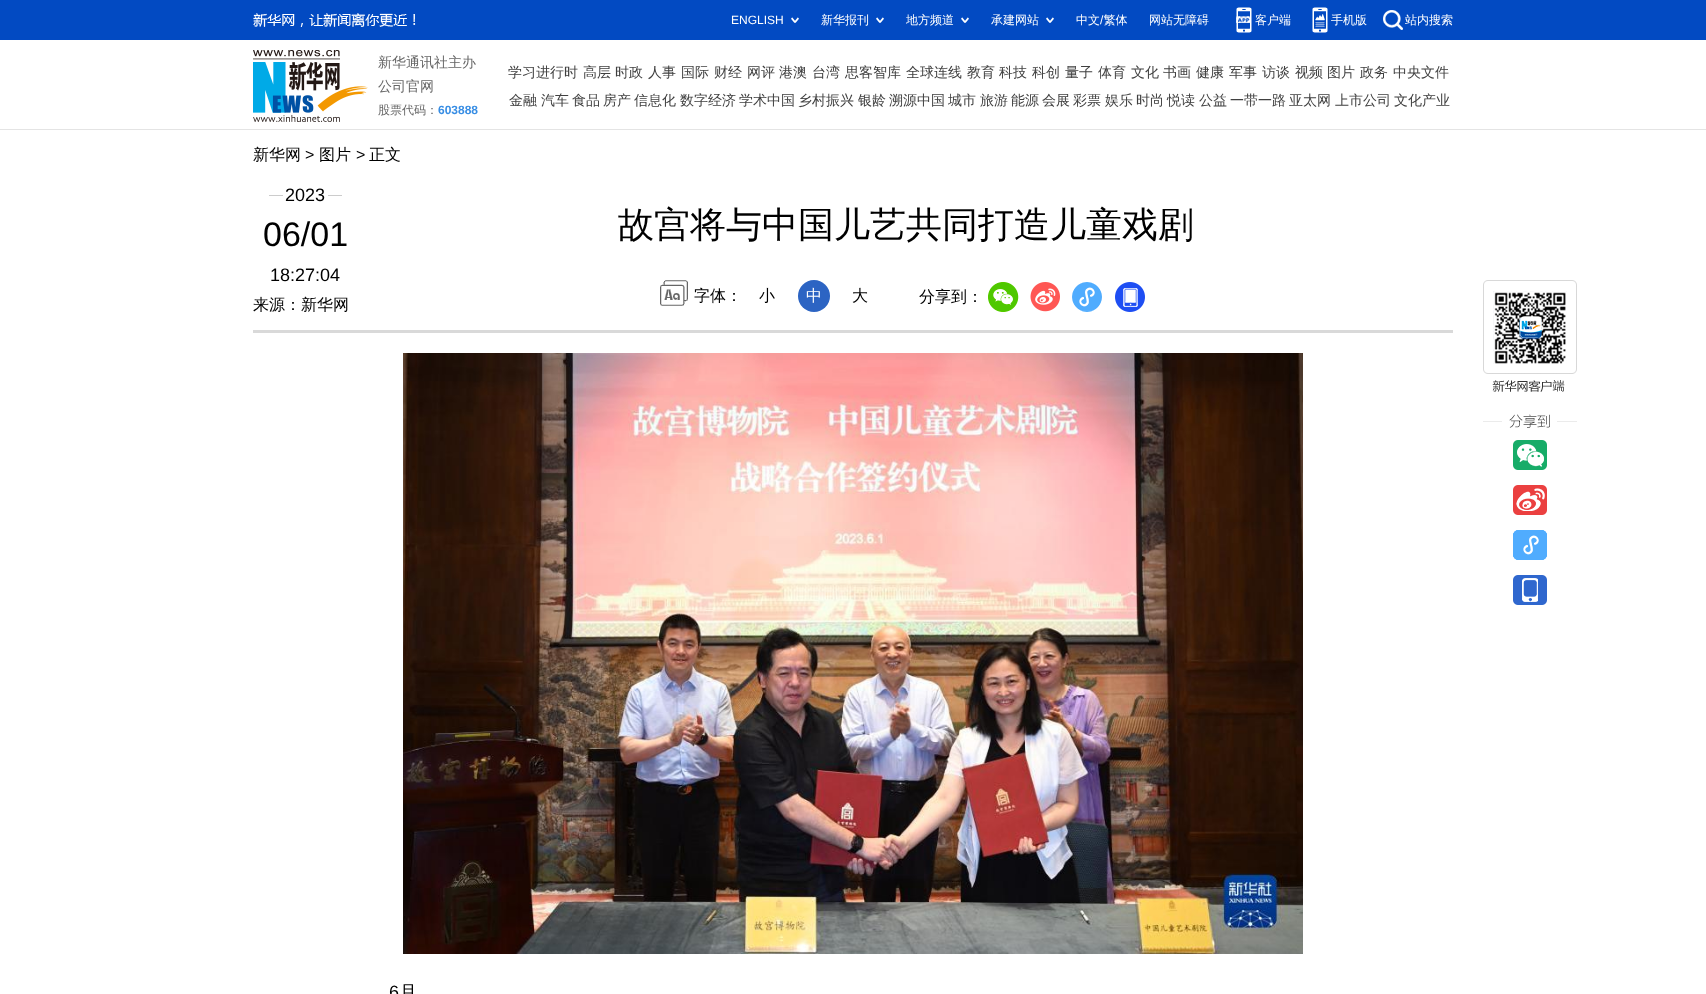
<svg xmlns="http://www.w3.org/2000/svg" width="1706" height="994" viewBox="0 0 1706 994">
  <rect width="100%" height="100%" fill="rgb(255,255,255)"/>
  <rect x="0" y="0" width="1706" height="40" fill="rgb(2,74,194)"/>
  <image x="253" y="13" width="163" height="14" href="pic1.png"/>
  <text x="731" y="24" font-family="Liberation Sans" font-size="12" fill="rgb(255,255,255)">ENGLISH</text>
  <image x="791" y="17" width="8" height="6" href="pic2.png"/>
  <text x="821" y="24" font-family="WenQuanYi Zen Hei" font-size="12" font-weight="500" fill="rgb(255,255,255)">新华报刊</text>
  <image x="876" y="17" width="8" height="6" href="pic2.png"/>
  <text x="906" y="24" font-family="WenQuanYi Zen Hei" font-size="12" font-weight="500" fill="rgb(255,255,255)">地方频道</text>
  <image x="961" y="17" width="8" height="6" href="pic2.png"/>
  <text x="991" y="24" font-family="WenQuanYi Zen Hei" font-size="12" font-weight="500" fill="rgb(255,255,255)">承建网站</text>
  <image x="1046" y="17" width="8" height="6" href="pic2.png"/>
  <text x="1076" y="24" font-family="WenQuanYi Zen Hei" font-size="12" font-weight="500" fill="rgb(255,255,255)">中文 繁体</text>
  <text x="1100" y="24" font-family="Liberation Sans" font-size="12" fill="rgb(255,255,255)">/</text>
  <text x="1149" y="24" font-family="WenQuanYi Zen Hei" font-size="12" font-weight="500" fill="rgb(255,255,255)">网站无障碍</text>
  <image x="1236" y="7" width="16" height="26" href="pic3.png"/>
  <text x="1255" y="24" font-family="WenQuanYi Zen Hei" font-size="12" font-weight="500" fill="rgb(255,255,255)">客户端</text>
  <image x="1312" y="7" width="16" height="26" href="pic4.png"/>
  <text x="1331" y="24" font-family="WenQuanYi Zen Hei" font-size="12" font-weight="500" fill="rgb(255,255,255)">手机版</text>
  <image x="1383" y="10" width="20" height="20" href="pic5.png"/>
  <text x="1405" y="24" font-family="WenQuanYi Zen Hei" font-size="12" font-weight="500" fill="rgb(255,255,255)">站内搜索</text>
  <rect x="0" y="129" width="1706" height="1" fill="rgb(228,228,228)"/>
  <image x="253" y="50" width="115" height="72" href="pic6.png"/>
  <g font-family="WenQuanYi Zen Hei" font-size="14" font-weight="500" fill="rgb(102,102,102)">
    <text>
      <tspan x="378" y="67">新华通讯社主办</tspan>
      <tspan x="378" y="91">公司官网</tspan>
    </text>
  </g>
  <text x="378" y="114" font-family="WenQuanYi Zen Hei" font-size="12" font-weight="500" fill="rgb(102,102,102)">股票代码：</text>
  <text x="438" y="114" font-family="Liberation Sans" font-size="12" font-weight="bold" fill="rgb(55,141,228)">603888</text>
  <g font-family="WenQuanYi Zen Hei" font-size="14" font-weight="500" fill="rgb(64,64,64)">
    <text x="508" y="77">学习进行时</text>
    <text x="583" y="77">高层</text>
    <text x="615" y="77">时政</text>
    <text x="648" y="77">人事</text>
    <text x="681" y="77">国际</text>
    <text x="714" y="77">财经</text>
    <text x="747" y="77">网评</text>
    <text x="779" y="77">港澳</text>
    <text x="812" y="77">台湾</text>
    <text x="845" y="77">思客智库</text>
    <text x="906" y="77">全球连线</text>
    <text x="967" y="77">教育</text>
    <text x="999" y="77">科技</text>
    <text x="1032" y="77">科创</text>
    <text x="1065" y="77">量子</text>
    <text x="1098" y="77">体育</text>
    <text x="1131" y="77">文化</text>
    <text x="1163" y="77">书画</text>
    <text x="1196" y="77">健康</text>
    <text x="1229" y="77">军事</text>
    <text x="1262" y="77">访谈</text>
    <text x="1295" y="77">视频</text>
    <text x="1327" y="77">图片</text>
    <text x="1360" y="77">政务</text>
    <text x="1393" y="77">中央文件</text>
    <text x="509" y="105">金融</text>
    <text x="541" y="105">汽车</text>
    <text x="572" y="105">食品</text>
    <text x="603" y="105">房产</text>
    <text x="634" y="105">信息化</text>
    <text x="680" y="105">数字经济</text>
    <text x="739" y="105">学术中国</text>
    <text x="798" y="105">乡村振兴</text>
    <text x="858" y="105">银龄</text>
    <text x="889" y="105">溯源中国</text>
    <text x="948" y="105">城市</text>
    <text x="980" y="105">旅游</text>
    <text x="1011" y="105">能源</text>
    <text x="1042" y="105">会展</text>
    <text x="1073" y="105">彩票</text>
    <text x="1105" y="105">娱乐</text>
    <text x="1136" y="105">时尚</text>
    <text x="1167" y="105">悦读</text>
    <text x="1199" y="105">公益</text>
    <text x="1230" y="105">一带一路</text>
    <text x="1289" y="105">亚太网</text>
    <text x="1335" y="105">上市公司</text>
    <text x="1394" y="105">文化产业</text>
  </g>
  <rect x="253" y="330" width="1200" height="3" fill="rgb(217,217,217)"/>
  <text x="253" y="160" font-family="WenQuanYi Zen Hei" font-size="16" font-weight="500" fill="rgb(0,0,0)">新华网</text>
  <text x="305" y="160" font-family="Liberation Sans" font-size="16" fill="rgb(0,0,0)">&gt;</text>
  <text x="319" y="160" font-family="WenQuanYi Zen Hei" font-size="16" font-weight="500" fill="rgb(0,0,0)">图片</text>
  <text x="356" y="160" font-family="Liberation Sans" font-size="16" fill="rgb(0,0,0)">&gt;</text>
  <text x="369" y="160" font-family="WenQuanYi Zen Hei" font-size="16" font-weight="500" fill="rgb(0,0,0)">正文</text>
  <rect x="269" y="195" width="73" height="1" fill="rgb(204,204,204)"/>
  <rect x="283" y="195" width="45" height="1" fill="rgb(255,255,255)"/>
  <text x="285" y="201" font-family="Liberation Sans" font-size="18" fill="rgb(0,0,0)">2023</text>
  <text x="263" y="246" font-family="Liberation Sans" font-size="34" fill="rgb(0,0,0)">06/01</text>
  <text x="270" y="281" font-family="Liberation Sans" font-size="18" fill="rgb(0,0,0)">18:27:04</text>
  <text x="618" y="237" font-family="WenQuanYi Zen Hei" font-size="36" font-weight="500" fill="rgb(0,0,0)">故宫将与中国儿艺共同打造儿童戏剧</text>
  <image x="660" y="280" width="28" height="26" href="pic7.png"/>
  <g font-family="WenQuanYi Zen Hei" font-size="16" font-weight="500" fill="rgb(0,0,0)">
    <text x="694" y="301">字体：</text>
    <text x="759" y="301">小</text>
  </g>
  <circle cx="814" cy="296" r="16" fill="rgb(44,100,195)"/>
  <text x="806" y="301" font-family="WenQuanYi Zen Hei" font-size="16" font-weight="500" fill="rgb(255,255,255)">中</text>
  <g font-family="WenQuanYi Zen Hei" font-size="16" font-weight="500" fill="rgb(0,0,0)">
    <text x="852" y="301">大</text>
    <text x="919" y="302">分享到：</text>
  </g>
  <image x="988" y="282" width="31" height="30" href="pic8.png"/>
  <image x="1030" y="282" width="30" height="30" href="pic9.png"/>
  <image x="1072" y="282" width="30" height="30" href="pic10.png"/>
  <image x="1115" y="282" width="30" height="30" href="pic11.png"/>
  <text x="253" y="310" font-family="WenQuanYi Zen Hei" font-size="16" font-weight="500" fill="rgb(0,0,0)">来源：新华网</text>
  <image x="1483" y="280" width="94" height="112" href="pic12.png"/>
  <image x="1483" y="414" width="94" height="14" href="pic13.png"/>
  <image x="1513" y="440" width="34" height="30" href="pic14.png"/>
  <image x="1513" y="485" width="34" height="30" href="pic15.png"/>
  <image x="1513" y="530" width="34" height="30" href="pic16.png"/>
  <image x="1513" y="575" width="34" height="30" href="pic17.png"/>
  <image x="403" y="353" width="900" height="601" href="pic18.png"/>
  <text x="389" y="998" font-family="Liberation Sans" font-size="18" fill="rgb(0,0,0)">6</text>
  <text x="399" y="998" font-family="WenQuanYi Zen Hei" font-size="18" font-weight="500" fill="rgb(0,0,0)">月</text>
</svg>
